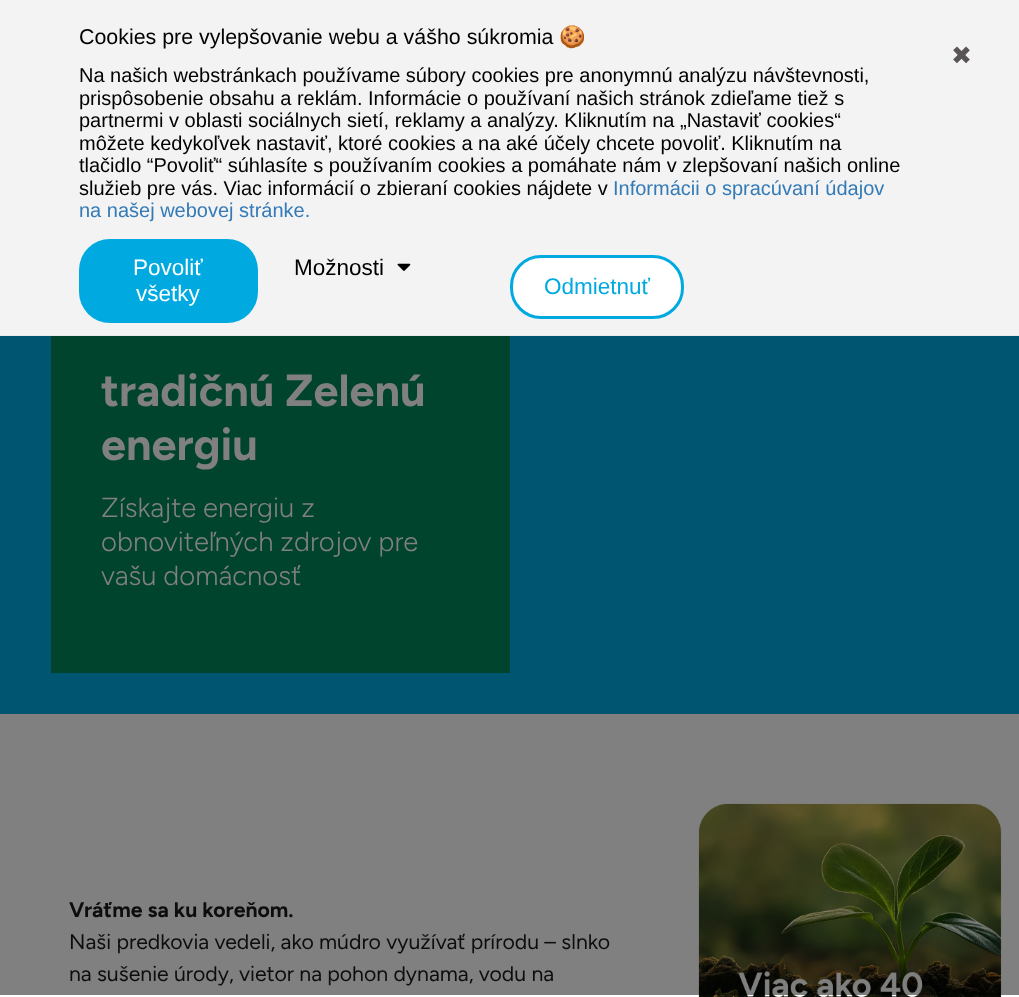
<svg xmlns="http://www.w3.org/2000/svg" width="1019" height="997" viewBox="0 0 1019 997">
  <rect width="100%" height="100%" fill="rgb(255,255,255)"/>
  <rect x="0" y="714" width="1019" height="281" fill="rgb(128,128,128)"/>
  <rect x="0" y="0" width="1019" height="335" fill="rgb(243,243,243)"/>
  <rect x="0" y="335" width="1019" height="1" fill="rgb(233,233,233)"/>
  <text x="79" y="44" font-family="Liberation Sans" font-size="21.4" fill="rgb(0,0,0)">Cookies pre vylepšovanie webu a vášho súkromia</text>
  <text x="559" y="44" font-family="Noto Color Emoji" font-size="21.4" fill="rgb(0,0,0)">🍪</text>
  <g font-family="Liberation Sans" font-size="20" fill="rgb(0,0,0)">
    <text>
      <tspan x="79" y="82">Na našich webstránkach používame súbory cookies pre anonymnú analýzu návštevnosti,</tspan>
      <tspan x="79" y="105">prispôsobenie obsahu a reklám. Informácie o používaní našich stránok zdieľame tiež s</tspan>
      <tspan x="79" y="127">partnermi v oblasti sociálnych sietí, reklamy a analýzy. Kliknutím na „Nastaviť cookies“</tspan>
      <tspan x="79" y="150">môžete kedykoľvek nastaviť, ktoré cookies a na aké účely chcete povoliť. Kliknutím na</tspan>
      <tspan x="79" y="172">tlačidlo “Povoliť“ súhlasíte s používaním cookies a pomáhate nám v zlepšovaní našich online</tspan>
      <tspan x="79" y="195">služieb pre vás. Viac informácií o zbieraní cookies nájdete v</tspan>
    </text>
  </g>
  <g font-family="Liberation Sans" font-size="20" fill="rgb(51,122,183)">
    <text x="613" y="195">Informácii o spracúvaní údajov</text>
    <text x="79" y="217">na našej webovej stránke.</text>
  </g>
  <rect x="79" y="239" width="179" height="84" rx="31" fill="rgb(0,170,225)"/>
  <g font-family="Liberation Sans" font-size="22.5" fill="rgb(255,255,255)">
    <text x="133" y="275">Povoliť</text>
    <text x="136" y="301">všetky</text>
  </g>
  <text x="294" y="275" font-family="Liberation Sans" font-size="22.5" fill="rgb(0,0,0)">Možnosti</text>
  <image x="397" y="263" width="14" height="8" href="pic1.png"/>
  <rect x="511.5" y="256.5" width="171" height="61" rx="29.5" fill="rgb(255,255,255)" stroke="rgb(0,170,225)" stroke-width="3"/>
  <text x="544" y="294" font-family="Liberation Sans" font-size="22.5" fill="rgb(0,170,225)">Odmietnuť</text>
  <text x="951" y="64" font-family="DejaVu Sans" font-size="25" fill="rgb(88,85,84)">✖</text>
  <rect x="0" y="336" width="1019" height="378" fill="rgb(0,85,113)"/>
  <rect x="51" y="336" width="459" height="337" fill="rgb(0,68,45)"/>
  <g font-family="Figtree" font-size="45" font-weight="bold" fill="rgb(128,128,128)">
    <text>
      <tspan x="101" y="406">tradičnú Zelenú</tspan>
      <tspan x="101" y="460">energiu</tspan>
    </text>
  </g>
  <g font-family="Figtree" font-size="27.5" font-weight="300" fill="rgb(128,128,128)">
    <text>
      <tspan x="101" y="517">Získajte energiu z</tspan>
      <tspan x="101" y="551">obnoviteľných zdrojov pre</tspan>
      <tspan x="101" y="585">vašu domácnosť</tspan>
    </text>
  </g>
  <text x="69" y="917" font-family="Figtree" font-size="21.25" font-weight="bold" fill="rgb(13,13,13)">Vráťme sa ku koreňom.</text>
  <g font-family="Figtree" font-size="21.25" fill="rgb(13,13,13)">
    <text>
      <tspan x="69" y="949">Naši predkovia vedeli, ako múdro využívať prírodu – slnko</tspan>
      <tspan x="69" y="981">na sušenie úrody, vietor na pohon dynama, vodu na</tspan>
    </text>
  </g>
  <image x="698" y="803" width="304" height="194" href="pic2.png"/>
</svg>
